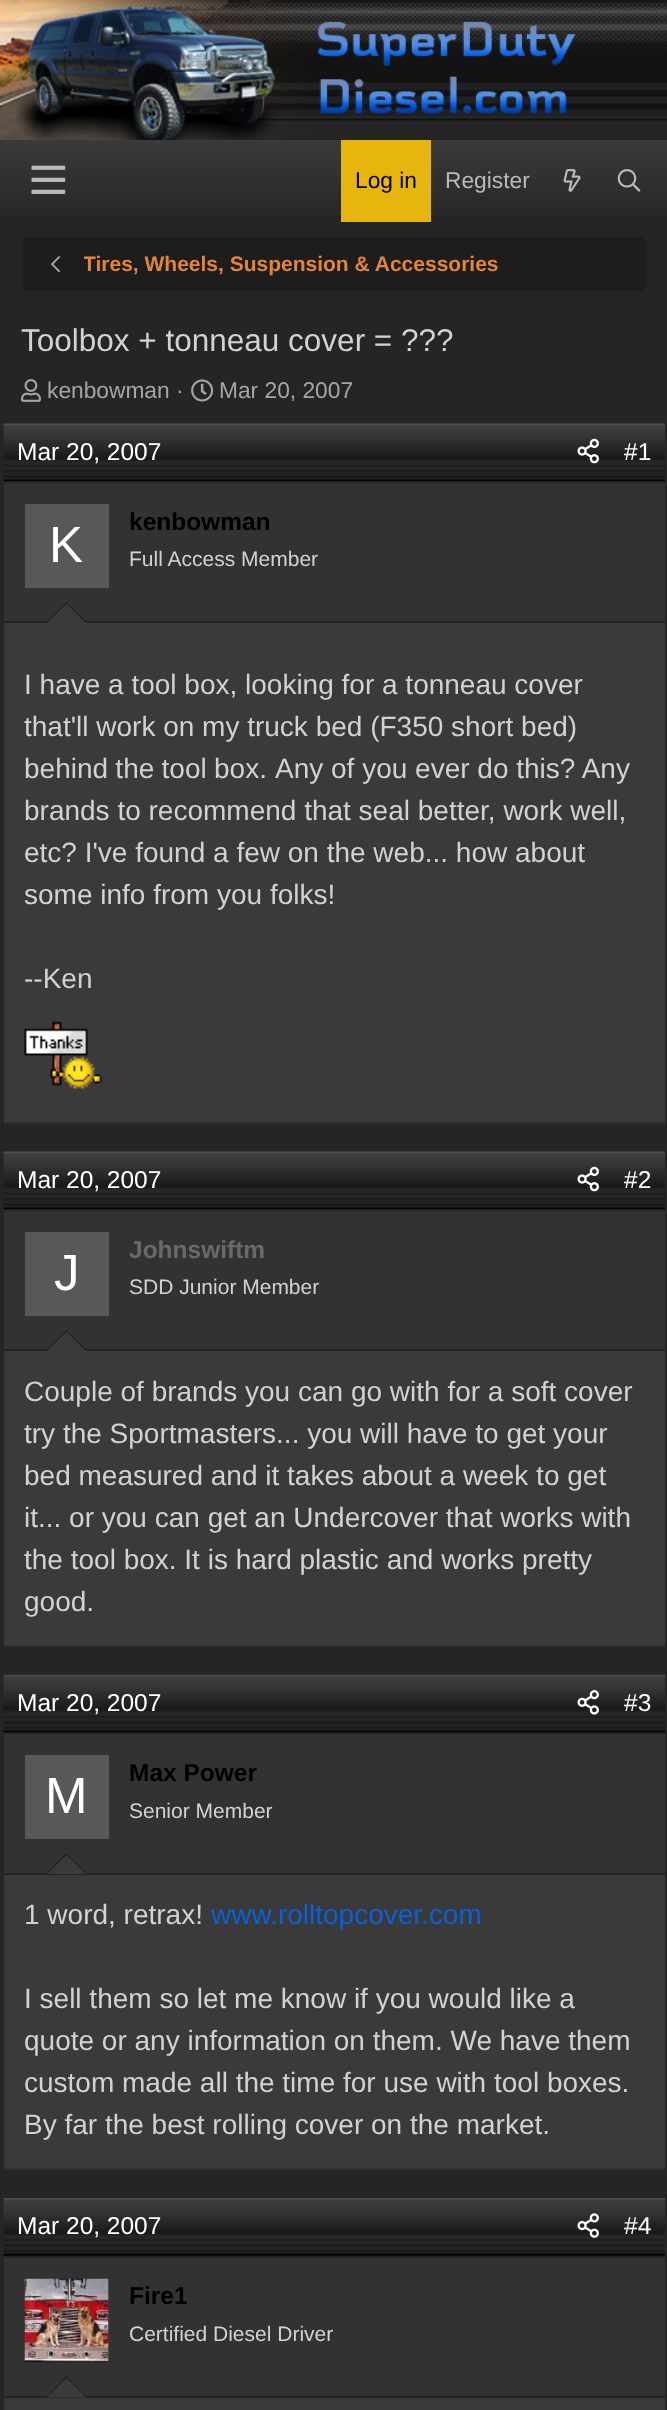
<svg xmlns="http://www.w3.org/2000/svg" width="667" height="2410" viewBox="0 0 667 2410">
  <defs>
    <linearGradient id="g1" gradientUnits="userSpaceOnUse" x1="334" y1="140" x2="334" y2="222"><stop offset="0" stop-color="rgb(58,58,58)"/><stop offset="1" stop-color="rgb(38,38,38)"/></linearGradient>
    <clipPath id="clip1"><rect x="84" y="249" width="415" height="31"/></clipPath>
  </defs>
  <rect width="100%" height="100%" fill="rgb(37,37,37)"/>
  <image x="3" y="0" width="664" height="140" href="pic1.png"/>
  <image x="0" y="0" width="576" height="140" href="pic2.png"/>
  <rect x="0" y="140" width="667" height="76" fill="url(#g1)"/>
  <image x="31" y="165" width="35" height="29" href="pic3.png"/>
  <rect x="341" y="140" width="90" height="82" fill="rgb(230,182,14)"/>
  <text x="355" y="188" font-family="Liberation Sans" font-size="22.75" fill="rgb(0,0,0)">Log in</text>
  <text x="445" y="188" font-family="Liberation Sans" font-size="22.75" fill="rgb(186,186,186)">Register</text>
  <image x="563" y="169" width="18" height="23" href="pic4.png"/>
  <image x="617" y="169" width="24" height="23" href="pic5.png"/>
  <rect x="22" y="237" width="625" height="54" rx="6" fill="rgb(29,29,29)" stroke="rgb(35,35,35)" stroke-width="2"/>
  <image x="50" y="256" width="11" height="17" href="pic6.png"/>
  <g clip-path="url(#clip1)">
    <text x="83" y="271" font-family="Liberation Sans" font-size="21" font-weight="bold" fill="rgb(229,132,55)">Tires, Wheels, Suspension &amp; Accessories</text>
  </g>
  <text x="21" y="351" font-family="Liberation Sans" font-size="31.5" fill="rgb(210,210,210)">Toolbox + tonneau cover = ???</text>
  <image x="21" y="379" width="20" height="23" href="pic7.png"/>
  <text x="47" y="398" font-family="Liberation Sans" font-size="22.75" fill="rgb(165,165,165)">kenbowman ·</text>
  <image x="191" y="379" width="23" height="23" href="pic8.png"/>
  <text x="219" y="398" font-family="Liberation Sans" font-size="22.75" fill="rgb(165,165,165)">Mar 20, 2007</text>
  <rect x="4" y="623" width="661" height="499" fill="rgb(58,58,58)"/>
  <rect x="4" y="1122" width="661" height="2" fill="rgb(48,48,48)"/>
  <image x="3" y="423" width="662" height="59" href="pic9.png"/>
  <rect x="4" y="481" width="661" height="1" fill="rgb(35,35,35)"/>
  <text x="17" y="460" font-family="Liberation Sans" font-size="24.5" fill="rgb(255,255,255)">Mar 20, 2007</text>
  <image x="577" y="438" width="22" height="26" href="pic10.png"/>
  <text x="624" y="460" font-family="Liberation Sans" font-size="24.5" fill="rgb(255,255,255)">#1</text>
  <rect x="4" y="483" width="661" height="138" fill="rgb(50,50,50)"/>
  <rect x="25" y="504" width="84" height="84" fill="rgb(88,88,88)"/>
  <text x="49" y="562" font-family="Liberation Sans" font-size="51" fill="rgb(255,255,255)">K</text>
  <text x="129" y="530" font-family="Liberation Sans" font-size="24.5" font-weight="bold" fill="rgb(0,0,0)">kenbowman</text>
  <text x="129" y="566" font-family="Liberation Sans" font-size="21" fill="rgb(210,210,210)">Full Access Member</text>
  <path d="M88 623H46L66 602Z" fill="rgb(35,35,35)"/>
  <path d="M86 623H47L66.5 604Z" fill="rgb(58,58,58)"/>
  <g font-family="Liberation Sans" font-size="28" fill="rgb(210,210,210)">
    <text>
      <tspan x="24" y="694">I have a tool box, looking for a tonneau cover</tspan>
      <tspan x="24" y="736">that'll work on my truck bed (F350 short bed)</tspan>
      <tspan x="24" y="778" word-spacing="-0.5">behind the tool box.</tspan>
    </text>
    <text x="275" y="778">Any of you ever do this? Any</text>
    <text>
      <tspan x="24" y="820">brands to recommend that seal better, work well,</tspan>
      <tspan x="24" y="862">etc? I've found a few on the web... how about</tspan>
      <tspan x="24" y="904">some info from you folks!</tspan>
    </text>
    <text x="24" y="988">--Ken</text>
  </g>
  <image x="24" y="1021" width="78" height="68" href="pic11.png"/>
  <rect x="4" y="1351" width="661" height="294" fill="rgb(58,58,58)"/>
  <rect x="4" y="1645" width="661" height="2" fill="rgb(48,48,48)"/>
  <image x="3" y="1151" width="662" height="59" href="pic9.png"/>
  <rect x="4" y="1209" width="661" height="1" fill="rgb(35,35,35)"/>
  <text x="17" y="1188" font-family="Liberation Sans" font-size="24.5" fill="rgb(255,255,255)">Mar 20, 2007</text>
  <image x="577" y="1166" width="22" height="26" href="pic10.png"/>
  <text x="624" y="1188" font-family="Liberation Sans" font-size="24.5" fill="rgb(255,255,255)">#2</text>
  <rect x="4" y="1211" width="661" height="138" fill="rgb(50,50,50)"/>
  <rect x="25" y="1232" width="84" height="84" fill="rgb(88,88,88)"/>
  <text x="54" y="1290" font-family="Liberation Sans" font-size="51" fill="rgb(255,255,255)">J</text>
  <text x="129" y="1258" font-family="Liberation Sans" font-size="24.5" font-weight="bold" fill="rgb(105,105,105)">Johnswiftm</text>
  <text x="129" y="1294" font-family="Liberation Sans" font-size="21" fill="rgb(210,210,210)">SDD Junior Member</text>
  <path d="M88 1351H46L66 1330Z" fill="rgb(35,35,35)"/>
  <path d="M86 1351H47L66.5 1332Z" fill="rgb(58,58,58)"/>
  <g font-family="Liberation Sans" font-size="28" fill="rgb(210,210,210)">
    <text>
      <tspan x="24" y="1401">Couple of brands you can go with for a soft cover</tspan>
      <tspan x="24" y="1443">try the Sportmasters... you will have to get your</tspan>
      <tspan x="24" y="1485">bed measured and it takes about a week to get</tspan>
      <tspan x="24" y="1527">it... or you can get an Undercover that works with</tspan>
      <tspan x="24" y="1569">the tool box. It is hard plastic and works pretty</tspan>
      <tspan x="24" y="1611">good.</tspan>
    </text>
  </g>
  <rect x="4" y="1732" width="661" height="436" fill="rgb(58,58,58)"/>
  <rect x="4" y="2168" width="661" height="2" fill="rgb(48,48,48)"/>
  <image x="3" y="1674" width="662" height="59" href="pic12.png"/>
  <rect x="4" y="1733" width="661" height="1" fill="rgb(35,35,35)"/>
  <text x="17" y="1711" font-family="Liberation Sans" font-size="24.5" fill="rgb(255,255,255)">Mar 20, 2007</text>
  <image x="577" y="1690" width="22" height="25" href="pic13.png"/>
  <text x="624" y="1711" font-family="Liberation Sans" font-size="24.5" fill="rgb(255,255,255)">#3</text>
  <rect x="4" y="1734" width="661" height="139" fill="rgb(50,50,50)"/>
  <rect x="4" y="1873" width="661" height="2" fill="rgb(35,35,35)"/>
  <rect x="25" y="1755" width="84" height="84" fill="rgb(88,88,88)"/>
  <text x="45" y="1813" font-family="Liberation Sans" font-size="51" fill="rgb(255,255,255)">M</text>
  <text x="129" y="1781" font-family="Liberation Sans" font-size="24.5" font-weight="bold" fill="rgb(0,0,0)">Max Power</text>
  <text x="129" y="1818" font-family="Liberation Sans" font-size="21" fill="rgb(210,210,210)">Senior Member</text>
  <path d="M88 1874H46L66 1853Z" fill="rgb(35,35,35)"/>
  <path d="M86 1874H47L66.5 1855Z" fill="rgb(58,58,58)"/>
  <text x="24" y="1924" font-family="Liberation Sans" font-size="28" fill="rgb(210,210,210)">1 word, retrax!</text>
  <text x="211" y="1924" font-family="Liberation Sans" font-size="28" fill="rgb(10,96,218)">www.rolltopcover.com</text>
  <g font-family="Liberation Sans" font-size="28" fill="rgb(210,210,210)">
    <text>
      <tspan x="24" y="2008">I sell them so let me know if you would like a</tspan>
      <tspan x="24" y="2050">quote or any information on them. We have them</tspan>
      <tspan x="24" y="2092">custom made all the time for use with tool boxes.</tspan>
      <tspan x="24" y="2134">By far the best rolling cover on the market.</tspan>
    </text>
  </g>
  <rect x="4" y="2255" width="661" height="155" fill="rgb(58,58,58)"/>
  <image x="3" y="2198" width="662" height="58" href="pic14.png"/>
  <rect x="4" y="2256" width="661" height="2" fill="rgb(35,35,35)"/>
  <text x="17" y="2234" font-family="Liberation Sans" font-size="24.5" fill="rgb(255,255,255)">Mar 20, 2007</text>
  <image x="577" y="2213" width="22" height="25" href="pic15.png"/>
  <text x="624" y="2234" font-family="Liberation Sans" font-size="24.5" fill="rgb(255,255,255)">#4</text>
  <rect x="4" y="2258" width="661" height="138" fill="rgb(50,50,50)"/>
  <rect x="4" y="2396" width="661" height="2" fill="rgb(35,35,35)"/>
  <rect x="25" y="2279" width="84" height="84" fill="rgb(58,58,58)"/>
  <image x="24" y="2278" width="85" height="85" href="pic16.png"/>
  <text x="129" y="2304" font-family="Liberation Sans" font-size="24.5" font-weight="bold" fill="rgb(0,0,0)">Fire1</text>
  <text x="129" y="2341" font-family="Liberation Sans" font-size="21" fill="rgb(210,210,210)">Certified Diesel Driver</text>
  <path d="M88 2398H46L66 2376Z" fill="rgb(35,35,35)"/>
  <path d="M86 2397.5H47L66.5 2378Z" fill="rgb(58,58,58)"/>
</svg>
